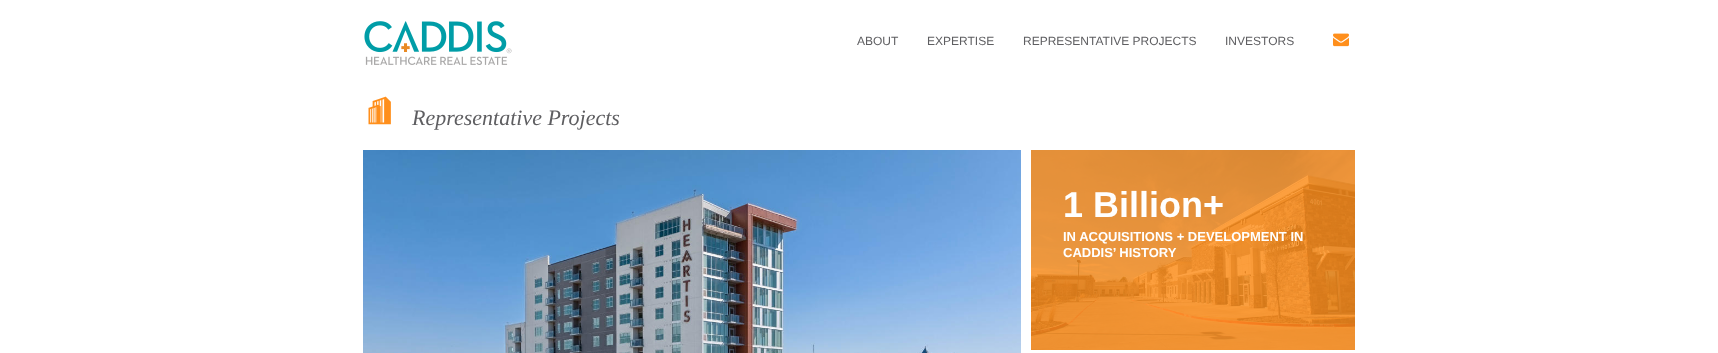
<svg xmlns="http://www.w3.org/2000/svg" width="1718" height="353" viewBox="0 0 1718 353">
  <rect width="100%" height="100%" fill="rgb(255,255,255)"/>
  <image x="364" y="21" width="148" height="44" href="pic1.png"/>
  <g font-family="Liberation Sans" font-size="12" fill="rgb(94,94,97)">
    <text x="857" y="45">ABOUT</text>
    <text x="927" y="45">EXPERTISE</text>
    <text x="1023" y="45">REPRESENTATIVE PROJECTS</text>
    <text x="1225" y="45">INVESTORS</text>
  </g>
  <image x="1333" y="33" width="16" height="14" href="pic2.png"/>
  <image x="368" y="96" width="23" height="29" href="pic3.png"/>
  <text x="412" y="125" font-family="Liberation Serif" font-size="22" font-style="italic" fill="rgb(94,94,97)">Representative Projects</text>
  <image x="363" y="150" width="658" height="203" href="pic4.png"/>
  <image x="1031" y="150" width="324" height="200" href="pic5.png"/>
  <text x="1063" y="217" font-family="Liberation Sans" font-size="36" font-weight="bold" fill="rgb(255,255,255)">1 Billion+</text>
  <g font-family="Liberation Sans" font-size="13" font-weight="bold" fill="rgb(255,255,255)">
    <text>
      <tspan x="1063" y="241">IN ACQUISITIONS + DEVELOPMENT IN</tspan>
      <tspan x="1063" y="257">CADDIS’ HISTORY</tspan>
    </text>
  </g>
</svg>
